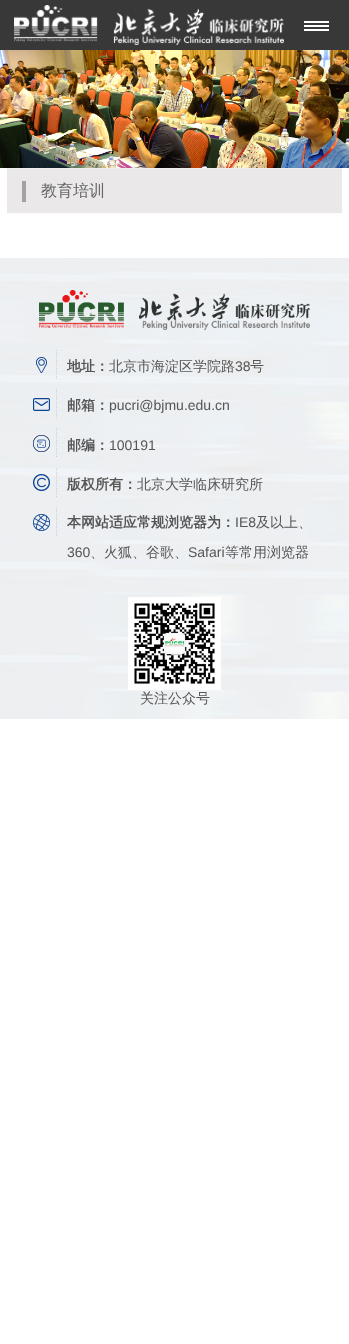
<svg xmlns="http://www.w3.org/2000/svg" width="349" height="1344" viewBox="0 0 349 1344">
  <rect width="100%" height="100%" fill="rgb(255,255,255)"/>
  <rect x="0" y="0" width="349" height="50" fill="rgb(56,56,56)"/>
  <image x="14" y="5" width="270" height="40" href="pic1.png"/>
  <rect x="304" y="21" width="25" height="2" fill="rgb(255,255,255)"/>
  <rect x="304" y="25" width="25" height="2" fill="rgb(255,255,255)"/>
  <rect x="304" y="29" width="25" height="2" fill="rgb(255,255,255)"/>
  <image x="0" y="50" width="349" height="118" href="pic2.png"/>
  <rect x="7" y="169" width="335" height="44" fill="rgb(234,232,232)"/>
  <rect x="7" y="168" width="335" height="1" fill="rgb(240,239,239)"/>
  <rect x="7" y="213" width="335" height="1" fill="rgb(252,252,252)"/>
  <rect x="22" y="181" width="4" height="21" fill="rgb(163,162,162)"/>
  <text x="41" y="196" font-family="WenQuanYi Zen Hei" font-size="16" font-weight="500" fill="rgb(103,103,103)">教育培训</text>
  <image x="0" y="258" width="349" height="461" href="pic3.png"/>
  <image x="39" y="290" width="271" height="40" href="pic4.png"/>
  <image x="36" y="357" width="11" height="16" href="pic5.png"/>
  <path d="M56.5 350V380" fill="none" stroke="rgb(198,209,226)" stroke-dasharray="1 1"/>
  <text x="67" y="371" font-family="WenQuanYi Zen Hei" font-size="14" font-weight="bold" fill="rgb(85,85,85)">地址：</text>
  <text x="109" y="371" font-family="WenQuanYi Zen Hei" font-size="14" font-weight="500" fill="rgb(85,85,85)">北京市海淀区学院路</text>
  <text x="235" y="371" font-family="Liberation Sans" font-size="14" fill="rgb(85,85,85)">38</text>
  <text x="250" y="371" font-family="WenQuanYi Zen Hei" font-size="14" font-weight="500" fill="rgb(85,85,85)">号</text>
  <image x="33" y="398" width="17" height="13" href="pic6.png"/>
  <path d="M56.5 389V419" fill="none" stroke="rgb(198,209,226)" stroke-dasharray="1 1"/>
  <text x="67" y="410" font-family="WenQuanYi Zen Hei" font-size="14" font-weight="bold" fill="rgb(85,85,85)">邮箱：</text>
  <text x="109" y="410" font-family="Liberation Sans" font-size="14" fill="rgb(85,85,85)">pucri@bjmu.edu.cn</text>
  <image x="33" y="435" width="17" height="17" href="pic7.png"/>
  <path d="M56.5 428V458" fill="none" stroke="rgb(198,209,226)" stroke-dasharray="1 1"/>
  <text x="67" y="450" font-family="WenQuanYi Zen Hei" font-size="14" font-weight="bold" fill="rgb(85,85,85)">邮编：</text>
  <text x="109" y="450" font-family="Liberation Sans" font-size="14" fill="rgb(85,85,85)">100191</text>
  <image x="33" y="474" width="17" height="17" href="pic8.png"/>
  <path d="M56.5 468V498" fill="none" stroke="rgb(198,209,226)" stroke-dasharray="1 1"/>
  <text x="67" y="489" font-family="WenQuanYi Zen Hei" font-size="14" font-weight="bold" fill="rgb(85,85,85)">版权所有：</text>
  <text x="137" y="489" font-family="WenQuanYi Zen Hei" font-size="14" font-weight="500" fill="rgb(85,85,85)">北京大学临床研究所</text>
  <image x="33" y="514" width="17" height="17" href="pic9.png"/>
  <path d="M56.5 507V537" fill="none" stroke="rgb(198,209,226)" stroke-dasharray="1 1"/>
  <text x="67" y="527" font-family="WenQuanYi Zen Hei" font-size="14" font-weight="bold" fill="rgb(85,85,85)">本网站适应常规浏览器为：</text>
  <text x="235" y="527" font-family="Liberation Sans" font-size="14" fill="rgb(85,85,85)">IE8</text>
  <text x="256" y="527" font-family="WenQuanYi Zen Hei" font-size="14" font-weight="500" fill="rgb(85,85,85)">及以上、</text>
  <text x="67" y="557" font-family="Liberation Sans" font-size="14" fill="rgb(85,85,85)">360</text>
  <text x="90" y="557" font-family="WenQuanYi Zen Hei" font-size="14" font-weight="500" fill="rgb(85,85,85)">、火狐、谷歌、</text>
  <text x="188" y="557" font-family="Liberation Sans" font-size="14" fill="rgb(85,85,85)">Safari</text>
  <text x="225" y="557" font-family="WenQuanYi Zen Hei" font-size="14" font-weight="500" fill="rgb(85,85,85)">等常用浏览器</text>
  <image x="128" y="597" width="93" height="93" href="pic10.png"/>
  <text x="140" y="703" font-family="WenQuanYi Zen Hei" font-size="14" font-weight="500" fill="rgb(85,85,85)">关注公众号</text>
</svg>
